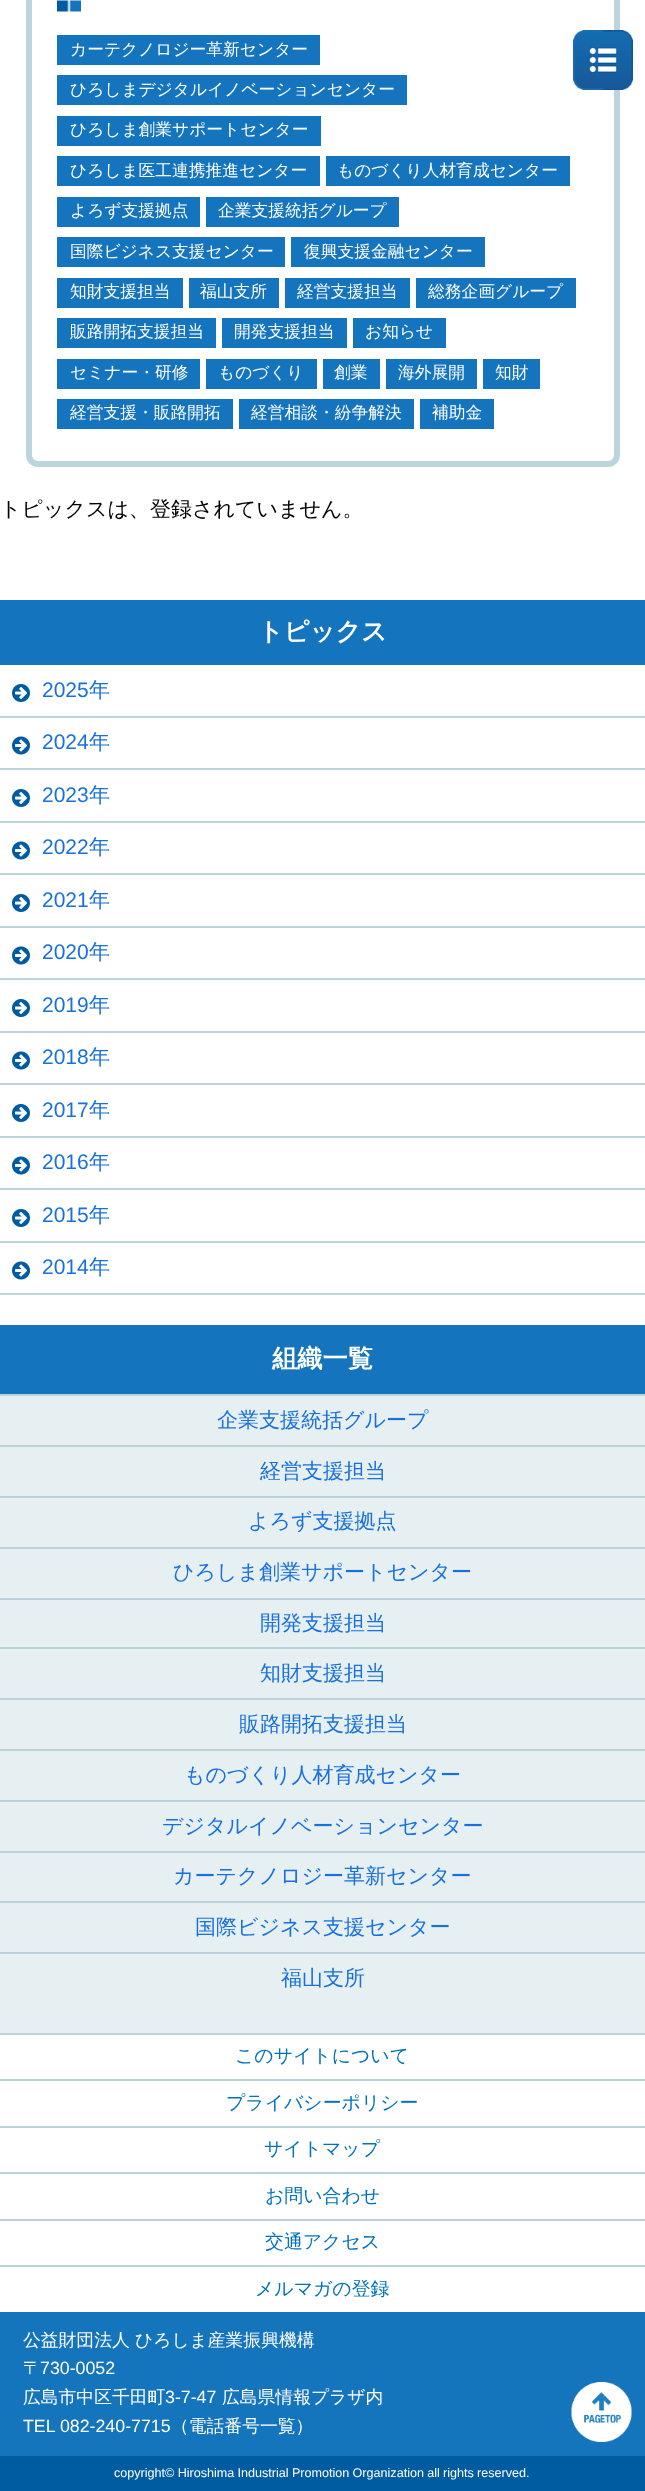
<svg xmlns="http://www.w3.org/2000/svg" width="645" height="2491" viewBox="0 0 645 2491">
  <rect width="100%" height="100%" fill="rgb(255,255,255)"/>
  <rect x="29" y="-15" width="588" height="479" rx="9" fill="none" stroke="rgb(188,213,220)" stroke-width="6"/>
  <image x="57" y="0" width="24" height="12" href="pic1.png"/>
  <rect x="57" y="35" width="263" height="30" fill="rgb(20,116,190)"/>
  <text x="70" y="55" font-family="WenQuanYi Zen Hei" font-size="16.75" font-weight="500" fill="rgb(255,255,255)">カーテクノロジー革新センター</text>
  <rect x="57" y="75" width="350" height="30" fill="rgb(20,116,190)"/>
  <text x="70" y="95" font-family="WenQuanYi Zen Hei" font-size="16.75" font-weight="500" fill="rgb(255,255,255)">ひろしまデジタルイノベーションセンター</text>
  <rect x="57" y="116" width="264" height="30" fill="rgb(20,116,190)"/>
  <text x="70" y="135" font-family="WenQuanYi Zen Hei" font-size="16.75" font-weight="500" fill="rgb(255,255,255)">ひろしま創業サポートセンター</text>
  <rect x="57" y="156" width="263" height="30" fill="rgb(20,116,190)"/>
  <text x="70" y="176" font-family="WenQuanYi Zen Hei" font-size="16.75" font-weight="500" fill="rgb(255,255,255)">ひろしま医工連携推進センター</text>
  <rect x="326" y="156" width="244" height="30" fill="rgb(20,116,190)"/>
  <text x="337" y="176" font-family="WenQuanYi Zen Hei" font-size="16.75" font-weight="500" fill="rgb(255,255,255)">ものづくり人材育成センター</text>
  <rect x="57" y="197" width="143" height="30" fill="rgb(20,116,190)"/>
  <text x="70" y="216" font-family="WenQuanYi Zen Hei" font-size="16.75" font-weight="500" fill="rgb(255,255,255)">よろず支援拠点</text>
  <rect x="206" y="197" width="193" height="30" fill="rgb(20,116,190)"/>
  <text x="218" y="216" font-family="WenQuanYi Zen Hei" font-size="16.75" font-weight="500" fill="rgb(255,255,255)">企業支援統括グループ</text>
  <rect x="57" y="237" width="228" height="30" fill="rgb(20,116,190)"/>
  <text x="70" y="257" font-family="WenQuanYi Zen Hei" font-size="16.75" font-weight="500" fill="rgb(255,255,255)">国際ビジネス支援センター</text>
  <rect x="291" y="237" width="194" height="30" fill="rgb(20,116,190)"/>
  <text x="304" y="257" font-family="WenQuanYi Zen Hei" font-size="16.75" font-weight="500" fill="rgb(255,255,255)">復興支援金融センター</text>
  <rect x="57" y="278" width="126" height="30" fill="rgb(20,116,190)"/>
  <text x="70" y="297" font-family="WenQuanYi Zen Hei" font-size="16.75" font-weight="500" fill="rgb(255,255,255)">知財支援担当</text>
  <rect x="189" y="278" width="90" height="30" fill="rgb(20,116,190)"/>
  <text x="200" y="297" font-family="WenQuanYi Zen Hei" font-size="16.75" font-weight="500" fill="rgb(255,255,255)">福山支所</text>
  <rect x="285" y="278" width="125" height="30" fill="rgb(20,116,190)"/>
  <text x="297" y="297" font-family="WenQuanYi Zen Hei" font-size="16.75" font-weight="500" fill="rgb(255,255,255)">経営支援担当</text>
  <rect x="416" y="278" width="160" height="30" fill="rgb(20,116,190)"/>
  <text x="428" y="297" font-family="WenQuanYi Zen Hei" font-size="16.75" font-weight="500" fill="rgb(255,255,255)">総務企画グループ</text>
  <rect x="57" y="318" width="159" height="30" fill="rgb(20,116,190)"/>
  <text x="70" y="337" font-family="WenQuanYi Zen Hei" font-size="16.75" font-weight="500" fill="rgb(255,255,255)">販路開拓支援担当</text>
  <rect x="222" y="318" width="125" height="30" fill="rgb(20,116,190)"/>
  <text x="234" y="337" font-family="WenQuanYi Zen Hei" font-size="16.75" font-weight="500" fill="rgb(255,255,255)">開発支援担当</text>
  <rect x="353" y="318" width="93" height="30" fill="rgb(20,116,190)"/>
  <text x="365" y="337" font-family="WenQuanYi Zen Hei" font-size="16.75" font-weight="500" fill="rgb(255,255,255)">お知らせ</text>
  <rect x="57" y="359" width="143" height="30" fill="rgb(20,116,190)"/>
  <text x="70" y="378" font-family="WenQuanYi Zen Hei" font-size="16.75" font-weight="500" fill="rgb(255,255,255)">セミナー・研修</text>
  <rect x="206" y="359" width="111" height="30" fill="rgb(20,116,190)"/>
  <text x="218" y="378" font-family="WenQuanYi Zen Hei" font-size="16.75" font-weight="500" fill="rgb(255,255,255)">ものづくり</text>
  <rect x="323" y="359" width="57" height="30" fill="rgb(20,116,190)"/>
  <text x="334" y="378" font-family="WenQuanYi Zen Hei" font-size="16.75" font-weight="500" fill="rgb(255,255,255)">創業</text>
  <rect x="386" y="359" width="91" height="30" fill="rgb(20,116,190)"/>
  <text x="398" y="378" font-family="WenQuanYi Zen Hei" font-size="16.75" font-weight="500" fill="rgb(255,255,255)">海外展開</text>
  <rect x="483" y="359" width="57" height="30" fill="rgb(20,116,190)"/>
  <text x="495" y="378" font-family="WenQuanYi Zen Hei" font-size="16.75" font-weight="500" fill="rgb(255,255,255)">知財</text>
  <rect x="57" y="399" width="176" height="30" fill="rgb(20,116,190)"/>
  <text x="70" y="418" font-family="WenQuanYi Zen Hei" font-size="16.75" font-weight="500" fill="rgb(255,255,255)">経営支援・販路開拓</text>
  <rect x="239" y="399" width="175" height="30" fill="rgb(20,116,190)"/>
  <text x="251" y="418" font-family="WenQuanYi Zen Hei" font-size="16.75" font-weight="500" fill="rgb(255,255,255)">経営相談・紛争解決</text>
  <rect x="420" y="399" width="74" height="30" fill="rgb(20,116,190)"/>
  <text x="432" y="418" font-family="WenQuanYi Zen Hei" font-size="16.75" font-weight="500" fill="rgb(255,255,255)">補助金</text>
  <text x="0" y="516" font-family="WenQuanYi Zen Hei" font-size="21" font-weight="500" fill="rgb(0,0,0)">トピックスは、登録されていません。</text>
  <rect x="0" y="600" width="645" height="65" fill="rgb(20,116,190)"/>
  <text x="258" y="640" font-family="WenQuanYi Zen Hei" font-size="25.25" font-weight="bold" fill="rgb(255,255,255)">トピックス</text>
  <rect x="0" y="716" width="645" height="2" fill="rgb(188,213,220)"/>
  <image x="12" y="684" width="18" height="18" href="pic2.png"/>
  <text x="42" y="697" font-family="Liberation Sans" font-size="21" fill="rgb(24,112,221)">2025</text>
  <text x="89" y="697" font-family="WenQuanYi Zen Hei" font-size="21" font-weight="500" fill="rgb(24,112,221)">年</text>
  <rect x="0" y="768" width="645" height="2" fill="rgb(188,213,220)"/>
  <image x="12" y="736" width="18" height="19" href="pic3.png"/>
  <text x="42" y="749" font-family="Liberation Sans" font-size="21" fill="rgb(24,112,221)">2024</text>
  <text x="89" y="749" font-family="WenQuanYi Zen Hei" font-size="21" font-weight="500" fill="rgb(24,112,221)">年</text>
  <rect x="0" y="821" width="645" height="2" fill="rgb(188,213,220)"/>
  <image x="12" y="789" width="18" height="18" href="pic2.png"/>
  <text x="42" y="802" font-family="Liberation Sans" font-size="21" fill="rgb(24,112,221)">2023</text>
  <text x="89" y="802" font-family="WenQuanYi Zen Hei" font-size="21" font-weight="500" fill="rgb(24,112,221)">年</text>
  <rect x="0" y="873" width="645" height="2" fill="rgb(188,213,220)"/>
  <image x="12" y="841" width="18" height="19" href="pic3.png"/>
  <text x="42" y="854" font-family="Liberation Sans" font-size="21" fill="rgb(24,112,221)">2022</text>
  <text x="89" y="854" font-family="WenQuanYi Zen Hei" font-size="21" font-weight="500" fill="rgb(24,112,221)">年</text>
  <rect x="0" y="926" width="645" height="2" fill="rgb(188,213,220)"/>
  <image x="12" y="894" width="18" height="18" href="pic2.png"/>
  <text x="42" y="907" font-family="Liberation Sans" font-size="21" fill="rgb(24,112,221)">2021</text>
  <text x="89" y="907" font-family="WenQuanYi Zen Hei" font-size="21" font-weight="500" fill="rgb(24,112,221)">年</text>
  <rect x="0" y="978" width="645" height="2" fill="rgb(188,213,220)"/>
  <image x="12" y="946" width="18" height="19" href="pic3.png"/>
  <text x="42" y="959" font-family="Liberation Sans" font-size="21" fill="rgb(24,112,221)">2020</text>
  <text x="89" y="959" font-family="WenQuanYi Zen Hei" font-size="21" font-weight="500" fill="rgb(24,112,221)">年</text>
  <rect x="0" y="1031" width="645" height="2" fill="rgb(188,213,220)"/>
  <image x="12" y="999" width="18" height="18" href="pic2.png"/>
  <text x="42" y="1012" font-family="Liberation Sans" font-size="21" fill="rgb(24,112,221)">2019</text>
  <text x="89" y="1012" font-family="WenQuanYi Zen Hei" font-size="21" font-weight="500" fill="rgb(24,112,221)">年</text>
  <rect x="0" y="1083" width="645" height="2" fill="rgb(188,213,220)"/>
  <image x="12" y="1051" width="18" height="19" href="pic3.png"/>
  <text x="42" y="1064" font-family="Liberation Sans" font-size="21" fill="rgb(24,112,221)">2018</text>
  <text x="89" y="1064" font-family="WenQuanYi Zen Hei" font-size="21" font-weight="500" fill="rgb(24,112,221)">年</text>
  <rect x="0" y="1136" width="645" height="2" fill="rgb(188,213,220)"/>
  <image x="12" y="1104" width="18" height="18" href="pic2.png"/>
  <text x="42" y="1117" font-family="Liberation Sans" font-size="21" fill="rgb(24,112,221)">2017</text>
  <text x="89" y="1117" font-family="WenQuanYi Zen Hei" font-size="21" font-weight="500" fill="rgb(24,112,221)">年</text>
  <rect x="0" y="1188" width="645" height="2" fill="rgb(188,213,220)"/>
  <image x="12" y="1156" width="18" height="19" href="pic3.png"/>
  <text x="42" y="1169" font-family="Liberation Sans" font-size="21" fill="rgb(24,112,221)">2016</text>
  <text x="89" y="1169" font-family="WenQuanYi Zen Hei" font-size="21" font-weight="500" fill="rgb(24,112,221)">年</text>
  <rect x="0" y="1241" width="645" height="2" fill="rgb(188,213,220)"/>
  <image x="12" y="1209" width="18" height="18" href="pic2.png"/>
  <text x="42" y="1222" font-family="Liberation Sans" font-size="21" fill="rgb(24,112,221)">2015</text>
  <text x="89" y="1222" font-family="WenQuanYi Zen Hei" font-size="21" font-weight="500" fill="rgb(24,112,221)">年</text>
  <rect x="0" y="1293" width="645" height="2" fill="rgb(188,213,220)"/>
  <image x="12" y="1261" width="18" height="19" href="pic3.png"/>
  <text x="42" y="1274" font-family="Liberation Sans" font-size="21" fill="rgb(24,112,221)">2014</text>
  <text x="89" y="1274" font-family="WenQuanYi Zen Hei" font-size="21" font-weight="500" fill="rgb(24,112,221)">年</text>
  <image x="573" y="30" width="60" height="60" href="pic4.png"/>
  <rect x="0" y="1396" width="645" height="637" fill="rgb(230,239,242)"/>
  <rect x="0" y="1325" width="645" height="69" fill="rgb(20,116,190)"/>
  <text x="272" y="1367" font-family="WenQuanYi Zen Hei" font-size="25.25" font-weight="bold" fill="rgb(255,255,255)">組織一覧</text>
  <rect x="0" y="1394" width="645" height="2" fill="rgb(186,211,218)"/>
  <text x="217" y="1427" font-family="WenQuanYi Zen Hei" font-size="21" font-weight="500" fill="rgb(24,112,221)">企業支援統括グループ</text>
  <rect x="0" y="1445" width="645" height="2" fill="rgb(186,211,218)"/>
  <text x="260" y="1478" font-family="WenQuanYi Zen Hei" font-size="21" font-weight="500" fill="rgb(24,112,221)">経営支援担当</text>
  <rect x="0" y="1496" width="645" height="2" fill="rgb(186,211,218)"/>
  <text x="248" y="1528" font-family="WenQuanYi Zen Hei" font-size="21" font-weight="500" fill="rgb(24,112,221)">よろず支援拠点</text>
  <rect x="0" y="1547" width="645" height="2" fill="rgb(186,211,218)"/>
  <text x="173" y="1579" font-family="WenQuanYi Zen Hei" font-size="21" font-weight="500" fill="rgb(24,112,221)">ひろしま創業サポートセンター</text>
  <rect x="0" y="1598" width="645" height="2" fill="rgb(186,211,218)"/>
  <text x="260" y="1630" font-family="WenQuanYi Zen Hei" font-size="21" font-weight="500" fill="rgb(24,112,221)">開発支援担当</text>
  <rect x="0" y="1647" width="645" height="2" fill="rgb(186,211,218)"/>
  <text x="260" y="1680" font-family="WenQuanYi Zen Hei" font-size="21" font-weight="500" fill="rgb(24,112,221)">知財支援担当</text>
  <rect x="0" y="1698" width="645" height="2" fill="rgb(186,211,218)"/>
  <text x="239" y="1731" font-family="WenQuanYi Zen Hei" font-size="21" font-weight="500" fill="rgb(24,112,221)">販路開拓支援担当</text>
  <rect x="0" y="1749" width="645" height="2" fill="rgb(186,211,218)"/>
  <text x="184" y="1782" font-family="WenQuanYi Zen Hei" font-size="21" font-weight="500" fill="rgb(24,112,221)">ものづくり人材育成センター</text>
  <rect x="0" y="1800" width="645" height="2" fill="rgb(186,211,218)"/>
  <text x="162" y="1833" font-family="WenQuanYi Zen Hei" font-size="21" font-weight="500" fill="rgb(24,112,221)">デジタルイノベーションセンター</text>
  <rect x="0" y="1851" width="645" height="2" fill="rgb(186,211,218)"/>
  <text x="173" y="1883" font-family="WenQuanYi Zen Hei" font-size="21" font-weight="500" fill="rgb(24,112,221)">カーテクノロジー革新センター</text>
  <rect x="0" y="1901" width="645" height="2" fill="rgb(186,211,218)"/>
  <text x="195" y="1934" font-family="WenQuanYi Zen Hei" font-size="21" font-weight="500" fill="rgb(24,112,221)">国際ビジネス支援センター</text>
  <rect x="0" y="1952" width="645" height="2" fill="rgb(186,211,218)"/>
  <text x="281" y="1985" font-family="WenQuanYi Zen Hei" font-size="21" font-weight="500" fill="rgb(24,112,221)">福山支所</text>
  <rect x="0" y="2312" width="645" height="144" fill="rgb(20,116,188)"/>
  <rect x="0" y="2033" width="645" height="2" fill="rgb(186,211,218)"/>
  <text x="235" y="2062" font-family="WenQuanYi Zen Hei" font-size="18.9" font-weight="500" fill="rgb(0,113,186)">このサイトについて</text>
  <rect x="0" y="2079" width="645" height="2" fill="rgb(186,211,218)"/>
  <text x="226" y="2109" font-family="WenQuanYi Zen Hei" font-size="18.9" font-weight="500" fill="rgb(0,113,186)">プライバシーポリシー</text>
  <rect x="0" y="2126" width="645" height="2" fill="rgb(186,211,218)"/>
  <text x="264" y="2155" font-family="WenQuanYi Zen Hei" font-size="18.9" font-weight="500" fill="rgb(0,113,186)">サイトマップ</text>
  <rect x="0" y="2172" width="645" height="2" fill="rgb(186,211,218)"/>
  <text x="265" y="2202" font-family="WenQuanYi Zen Hei" font-size="18.9" font-weight="500" fill="rgb(0,113,186)">お問い合わせ</text>
  <rect x="0" y="2219" width="645" height="2" fill="rgb(186,211,218)"/>
  <text x="265" y="2248" font-family="WenQuanYi Zen Hei" font-size="18.9" font-weight="500" fill="rgb(0,113,186)">交通アクセス</text>
  <rect x="0" y="2265" width="645" height="2" fill="rgb(186,211,218)"/>
  <text x="255" y="2295" font-family="WenQuanYi Zen Hei" font-size="18.9" font-weight="500" fill="rgb(0,113,186)">メルマガの登録</text>
  <g font-family="WenQuanYi Zen Hei" font-size="17.8" font-weight="500" fill="rgb(255,255,255)">
    <text>
      <tspan x="23" y="2346">公益財団法人 ひろしま産業振興機構</tspan>
      <tspan x="23" y="2374">〒</tspan>
    </text>
  </g>
  <text x="40" y="2374" font-family="Liberation Sans" font-size="17.8" fill="rgb(255,255,255)">730-0052</text>
  <text x="23" y="2403" font-family="WenQuanYi Zen Hei" font-size="17.8" font-weight="500" fill="rgb(255,255,255)">広島市中区千田町</text>
  <text x="165" y="2403" font-family="Liberation Sans" font-size="17.8" fill="rgb(255,255,255)">3-7-47</text>
  <text x="222" y="2403" font-family="WenQuanYi Zen Hei" font-size="17.8" font-weight="500" fill="rgb(255,255,255)">広島県情報プラザ内</text>
  <text x="23" y="2432" font-family="Liberation Sans" font-size="17.8" fill="rgb(255,255,255)">TEL 082-240-7715</text>
  <text x="171" y="2432" font-family="WenQuanYi Zen Hei" font-size="17.8" font-weight="500" fill="rgb(255,255,255)">（電話番号一覧）</text>
  <image x="571" y="2382" width="61" height="60" href="pic5.png"/>
  <rect x="0" y="2456" width="645" height="35" fill="rgb(0,92,160)"/>
  <text x="114" y="2477" word-spacing="-0.25" font-family="Liberation Sans" font-size="12.6" fill="rgb(255,255,255)">copyright© Hiroshima Industrial Promotion Organization all rights reserved.</text>
</svg>
